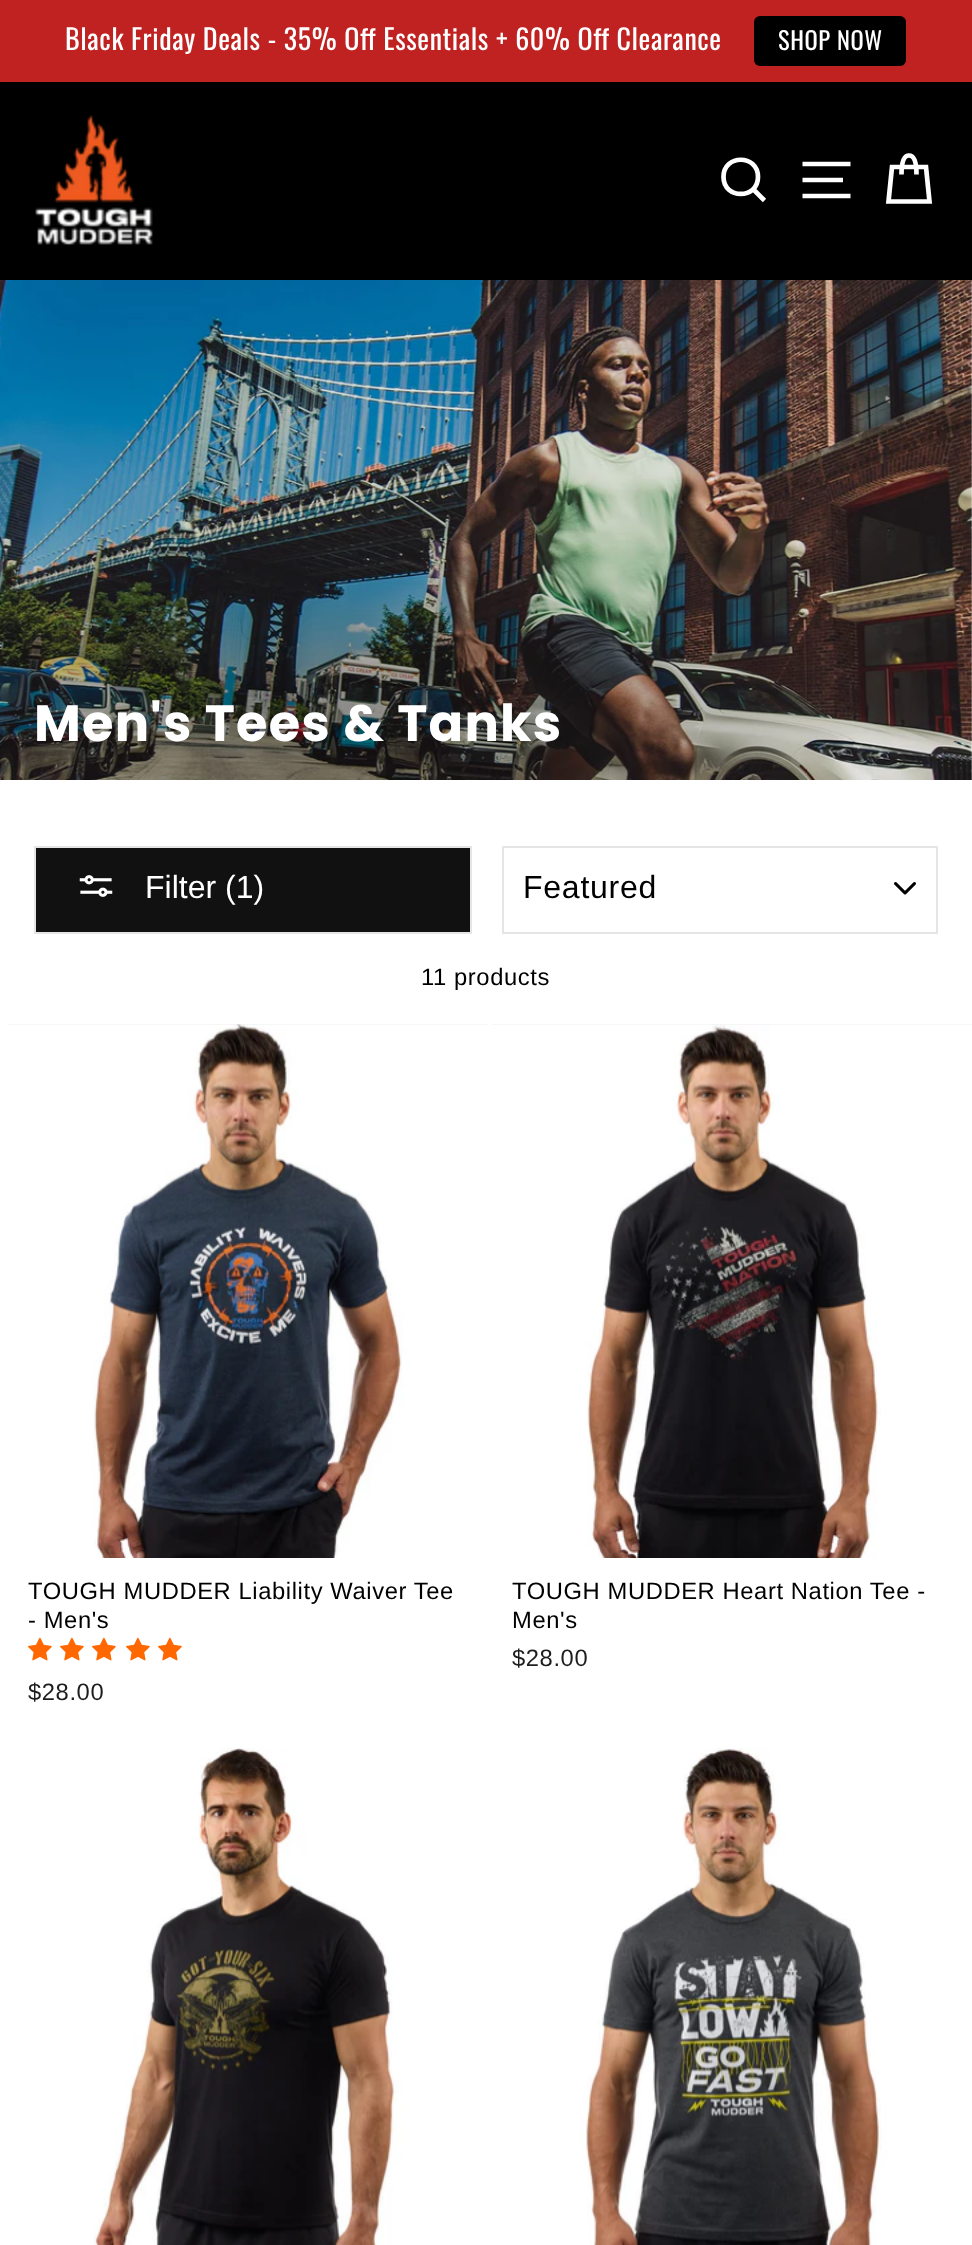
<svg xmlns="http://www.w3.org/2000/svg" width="972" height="2245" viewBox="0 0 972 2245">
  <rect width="100%" height="100%" fill="rgb(255,255,255)"/>
  <rect x="0" y="0" width="972" height="82" fill="rgb(192,34,34)"/>
  <text x="65" y="50" font-family="Oswald" font-size="28" letter-spacing="0.6" fill="rgb(255,255,255)">Black Friday Deals - 35% Off Essentials + 60% Off Clearance</text>
  <rect x="754" y="16" width="152" height="50" rx="6" fill="rgb(0,0,0)"/>
  <text x="778" y="50" font-family="Oswald" font-size="24.5" letter-spacing="0.6" fill="rgb(255,255,255)">SHOP NOW</text>
  <rect x="0" y="82" width="972" height="198" fill="rgb(0,0,0)"/>
  <image x="35" y="115" width="118" height="131" href="pic1.png"/>
  <path d="M758 177C758 199.5 723.5 199.5 723.5 177C723.5 154 758 154 758 177ZM764.5 200.5L753.5 189.5" fill="none" stroke="rgb(255,255,255)" stroke-width="4.7"/>
  <path d="M802.5 164H850.5M802.5 180H843M802.5 196H850.5" fill="none" stroke="rgb(255,255,255)" stroke-width="4.7"/>
  <path d="M901.5 174.5C901.5 159.5 905 155.5 909 155.5C913 155.5 916.5 159.5 916.5 174.5M892 167H926L929.5 201.5H888.5Z" fill="none" stroke="rgb(255,255,255)" stroke-width="4.7"/>
  <image x="0" y="280" width="972" height="500" href="pic2.png"/>
  <text x="34" y="741" font-family="Poppins" font-size="51" font-weight="bold" letter-spacing="1.25" fill="rgb(255,255,255)">Men's Tees &amp; Tanks</text>
  <rect x="35" y="847" width="436" height="86" fill="rgb(17,17,17)" stroke="rgb(229,229,229)" stroke-width="2"/>
  <image x="79" y="875" width="34" height="22" href="pic3.png"/>
  <text x="145" y="898" font-family="Liberation Sans" font-size="32" fill="rgb(255,255,255)">Filter (1)</text>
  <image x="894" y="882" width="22" height="13" href="pic4.png"/>
  <rect x="503" y="847" width="434" height="86" fill="none" stroke="rgb(229,229,229)" stroke-width="2"/>
  <text x="523" y="898" font-family="Liberation Sans" font-size="32" letter-spacing="0.75" fill="rgb(0,0,0)">Featured</text>
  <text x="421" y="985" font-family="Liberation Sans" font-size="23.75" letter-spacing="0.6" fill="rgb(0,0,0)">11 products</text>
  <rect x="8" y="1024" width="480" height="1" fill="rgb(229,229,229)"/>
  <image x="8" y="1024" width="480" height="534" href="pic5.png"/>
  <g font-family="Liberation Sans" font-size="23.75" letter-spacing="0.6" fill="rgb(0,0,0)">
    <text>
      <tspan x="28" y="1599">TOUGH MUDDER Liability Waiver Tee</tspan>
      <tspan x="28" y="1628">- Men's</tspan>
    </text>
  </g>
  <image x="28" y="1637" width="24" height="24" href="pic6.png"/>
  <image x="60" y="1637" width="24" height="24" href="pic6.png"/>
  <image x="92" y="1637" width="24" height="24" href="pic6.png"/>
  <image x="126" y="1637" width="24" height="24" href="pic6.png"/>
  <image x="158" y="1637" width="24" height="24" href="pic6.png"/>
  <text x="28" y="1700" font-family="Liberation Sans" font-size="23.75" letter-spacing="0.6" fill="rgb(28,29,29)">$28.00</text>
  <rect x="492" y="1024" width="480" height="1" fill="rgb(229,229,229)"/>
  <image x="492" y="1024" width="480" height="534" href="pic7.png"/>
  <g font-family="Liberation Sans" font-size="23.75" letter-spacing="0.6" fill="rgb(0,0,0)">
    <text>
      <tspan x="512" y="1599">TOUGH MUDDER Heart Nation Tee -</tspan>
      <tspan x="512" y="1628">Men's</tspan>
    </text>
  </g>
  <text x="512" y="1666" font-family="Liberation Sans" font-size="23.75" letter-spacing="0.6" fill="rgb(28,29,29)">$28.00</text>
  <image x="8" y="1748" width="480" height="497" href="pic8.png"/>
  <image x="492" y="1748" width="480" height="497" href="pic9.png"/>
</svg>
